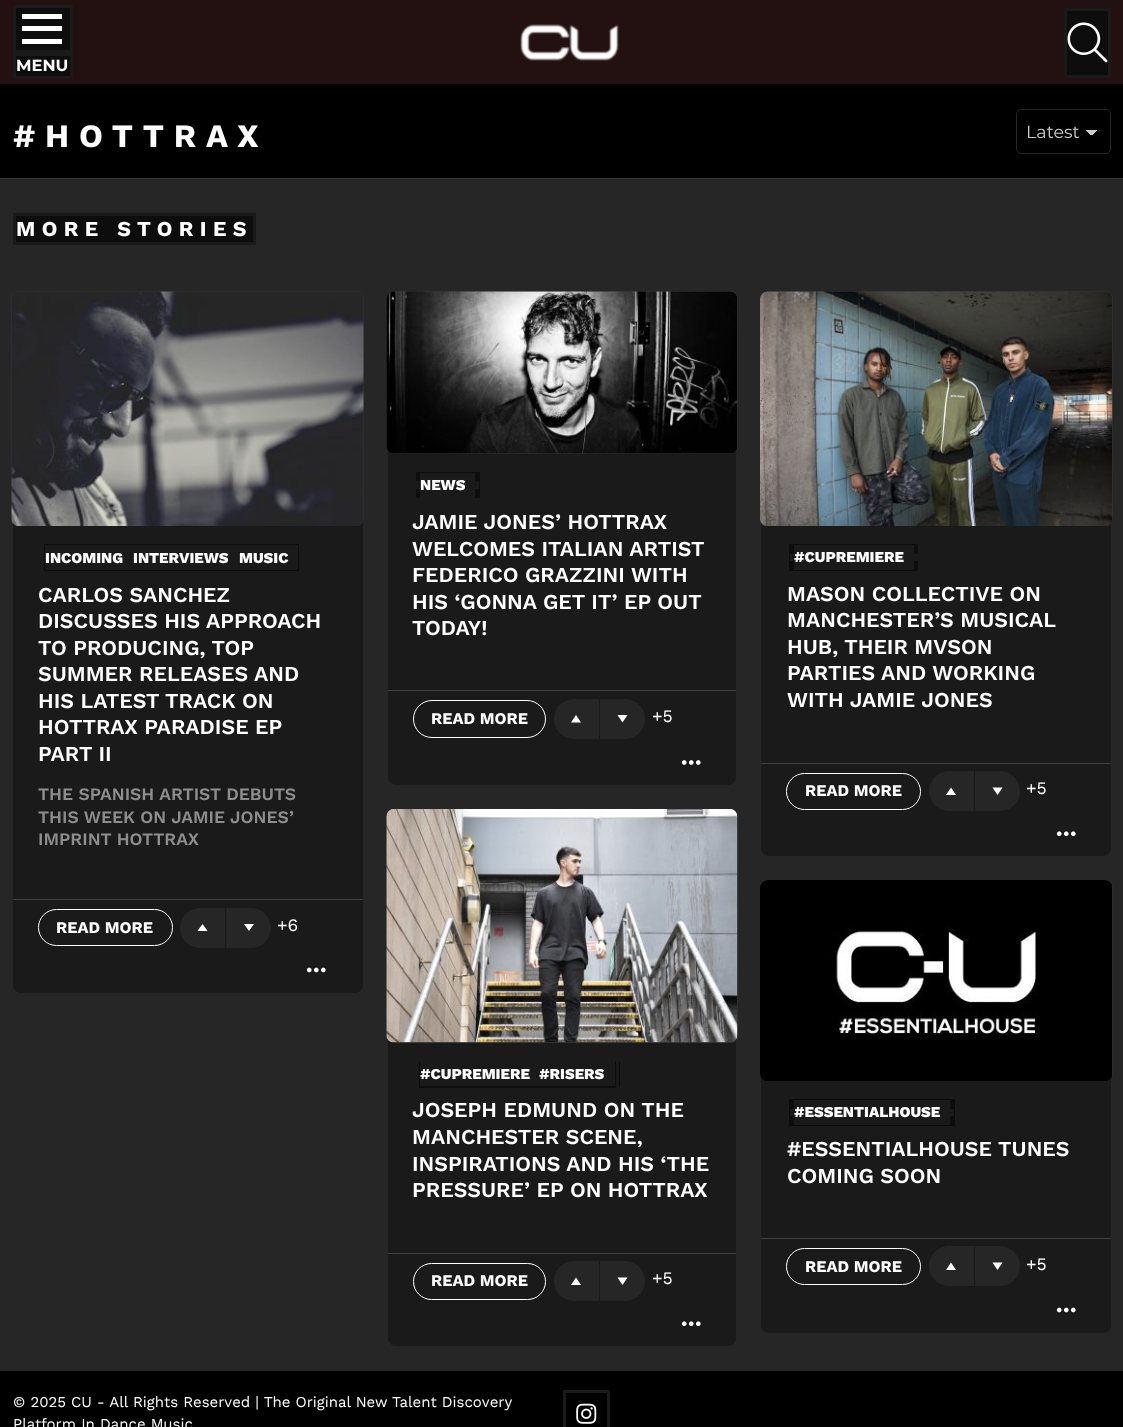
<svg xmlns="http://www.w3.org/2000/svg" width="1123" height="1427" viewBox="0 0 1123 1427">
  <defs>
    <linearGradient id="g1" gradientUnits="userSpaceOnUse" x1="1092" y1="130" x2="1097" y2="135"><stop offset="0.5" stop-color="rgb(204,204,204)"/><stop offset="0.5" stop-color="rgb(0,0,0)"/></linearGradient>
    <linearGradient id="g2" gradientUnits="userSpaceOnUse" x1="1085" y1="135" x2="1091" y2="130"><stop offset="0.5" stop-color="rgb(0,0,0)"/><stop offset="0.5" stop-color="rgb(204,204,204)"/></linearGradient>
  </defs>
  <rect width="100%" height="100%" fill="rgb(38,38,38)"/>
  <rect x="0" y="0" width="1123" height="84" fill="rgb(35,17,17)"/>
  <image x="520" y="24" width="99" height="37" href="pic1.png"/>
  <rect x="1065.5" y="9.5" width="44" height="67" fill="rgb(13,13,13)" stroke="rgb(26,26,26)" stroke-width="3"/>
  <image x="1067" y="22" width="41" height="41" href="pic2.png"/>
  <rect x="14.5" y="6.5" width="57" height="45" fill="rgb(13,13,13)" stroke="rgb(26,26,26)" stroke-width="3"/>
  <path d="M22 14H62V19H22ZM22 26H62V31H22ZM22 39H62V44H22Z" fill="rgb(255,255,255)"/>
  <rect x="14.5" y="54.5" width="57" height="23" fill="rgb(13,13,13)" stroke="rgb(26,26,26)" stroke-width="3"/>
  <text x="16" y="71" font-family="Montserrat" font-size="16.25" font-weight="bold" fill="rgb(255,255,255)">MENU</text>
  <rect x="0" y="84" width="1123" height="94" fill="rgb(0,0,0)"/>
  <rect x="0" y="178" width="1123" height="1" fill="rgb(51,51,51)"/>
  <text x="13" y="147" font-family="Work Sans" font-size="32.5" font-weight="bold" letter-spacing="9.75" fill="rgb(255,255,255)">#HOTTRAX</text>
  <rect x="1091" y="130" width="7" height="5" fill="url(#g1)"/>
  <rect x="1085" y="130" width="6" height="5" fill="url(#g2)"/>
  <rect x="1016.5" y="109.5" width="94" height="44" rx="4.5" fill="none" stroke="rgb(38,38,38)"/>
  <text x="1026" y="138" font-family="Montserrat" font-size="17.5" fill="rgb(204,204,204)">Latest</text>
  <rect x="14.5" y="214.5" width="240" height="29" fill="rgb(13,13,13)" stroke="rgb(26,26,26)" stroke-width="3"/>
  <text x="16" y="236" font-family="Work Sans" font-size="21.25" font-weight="bold" letter-spacing="6.4" fill="rgb(255,255,255)">MORE STORIES</text>
  <rect x="13" y="293" width="350" height="700" rx="8" fill="rgb(26,26,26)"/>
  <rect x="11" y="291" width="353" height="235" rx="8" fill="rgb(51,51,51)"/>
  <image x="11" y="291" width="353" height="235" href="pic3.png"/>
  <rect x="44" y="544" width="255" height="27" fill="rgb(13,13,13)"/>
  <rect x="45" y="545" width="253" height="25" fill="rgb(26,26,26)"/>
  <g font-family="Work Sans" font-size="15" font-weight="800" fill="rgb(255,255,255)">
    <text x="45" y="563">INCOMING</text>
    <text x="133" y="563">INTERVIEWS</text>
    <text x="239" y="563">MUSIC</text>
  </g>
  <g font-family="Work Sans" font-size="21.25" font-weight="600" fill="rgb(255,255,255)">
    <text>
      <tspan x="38" y="602">CARLOS SANCHEZ</tspan>
      <tspan x="38" y="628">DISCUSSES HIS APPROACH</tspan>
      <tspan x="38" y="655">TO PRODUCING, TOP</tspan>
      <tspan x="38" y="681">SUMMER RELEASES AND</tspan>
      <tspan x="38" y="708">HIS LATEST TRACK ON</tspan>
      <tspan x="38" y="734">HOTTRAX PARADISE EP</tspan>
      <tspan x="38" y="761">PART II</tspan>
    </text>
  </g>
  <g font-family="Work Sans" font-size="17.5" font-weight="600" fill="rgb(141,141,141)">
    <text>
      <tspan x="38" y="800">THE SPANISH ARTIST DEBUTS</tspan>
      <tspan x="38" y="823">THIS WEEK ON JAMIE JONES’</tspan>
      <tspan x="38" y="845">IMPRINT HOTTRAX</tspan>
    </text>
  </g>
  <rect x="13" y="899" width="350" height="1" fill="rgb(64,64,64)"/>
  <rect x="38.5" y="909.5" width="134" height="36" rx="18" fill="none" stroke="rgb(255,255,255)"/>
  <text x="56" y="933" font-family="Work Sans" font-size="16.25" font-weight="bold" fill="rgb(255,255,255)">READ MORE</text>
  <path d="M200 908H225V948H200C189 948 180 939 180 928C180 917 189 908 200 908Z" fill="rgb(38,38,38)"/>
  <path d="M202.5 924L197.5 931H207.5Z" fill="rgb(255,255,255)"/>
  <path d="M226 908H251C262 908 271 917 271 928C271 939 262 948 251 948H226Z" fill="rgb(38,38,38)"/>
  <path d="M249 931L244 924H254Z" fill="rgb(255,255,255)"/>
  <text x="277" y="931" font-family="Work Sans" font-size="17.5" fill="rgb(255,255,255)">+6</text>
  <image x="306" y="967" width="20" height="6" href="pic4.png"/>
  <rect x="388" y="293" width="348" height="492" rx="8" fill="rgb(26,26,26)"/>
  <rect x="386" y="291" width="352" height="163" rx="8" fill="rgb(51,51,51)"/>
  <image x="386" y="291" width="352" height="163" href="pic5.png"/>
  <rect x="416" y="472" width="64" height="26" fill="rgb(13,13,13)"/>
  <rect x="417.5" y="482.5" width="60" height="5" fill="none" stroke="rgb(26,26,26)" stroke-width="3"/>
  <rect x="420" y="473" width="55" height="25" fill="rgb(26,26,26)"/>
  <text x="420" y="490" font-family="Work Sans" font-size="15" font-weight="800" fill="rgb(255,255,255)">NEWS</text>
  <g font-family="Work Sans" font-size="21.25" font-weight="600" fill="rgb(255,255,255)">
    <text>
      <tspan x="412" y="529">JAMIE JONES’ HOTTRAX</tspan>
      <tspan x="412" y="556">WELCOMES ITALIAN ARTIST</tspan>
      <tspan x="412" y="582">FEDERICO GRAZZINI WITH</tspan>
      <tspan x="412" y="609">HIS ‘GONNA GET IT’ EP OUT</tspan>
      <tspan x="412" y="635">TODAY!</tspan>
    </text>
  </g>
  <rect x="388" y="690" width="348" height="1" fill="rgb(64,64,64)"/>
  <rect x="413.5" y="700.5" width="132" height="37" rx="18.5" fill="none" stroke="rgb(255,255,255)"/>
  <text x="431" y="724" font-family="Work Sans" font-size="16.25" font-weight="bold" fill="rgb(255,255,255)">READ MORE</text>
  <path d="M574 699H599V739H574C563 739 554 730 554 719C554 708 563 699 574 699Z" fill="rgb(38,38,38)"/>
  <path d="M576 715L571 722.5H581Z" fill="rgb(255,255,255)"/>
  <path d="M600 699H625C636 699 645 708 645 719C645 730 636 739 625 739H600Z" fill="rgb(38,38,38)"/>
  <path d="M622.5 722.5L617.5 715H627.5Z" fill="rgb(255,255,255)"/>
  <text x="652" y="722" font-family="Work Sans" font-size="17.5" fill="rgb(255,255,255)">+5</text>
  <image x="681" y="760" width="20" height="5" href="pic6.png"/>
  <rect x="761" y="293" width="350" height="563" rx="8" fill="rgb(26,26,26)"/>
  <rect x="760" y="291" width="353" height="235" rx="8" fill="rgb(51,51,51)"/>
  <image x="760" y="291" width="353" height="235" href="pic7.png"/>
  <rect x="789" y="544" width="129" height="27" fill="rgb(13,13,13)"/>
  <rect x="791.5" y="555.5" width="125" height="4" fill="none" stroke="rgb(26,26,26)" stroke-width="3"/>
  <rect x="794" y="545" width="120" height="25" fill="rgb(26,26,26)"/>
  <text x="794" y="562" font-family="Work Sans" font-size="15" font-weight="800" fill="rgb(255,255,255)">#CUPREMIERE</text>
  <g font-family="Work Sans" font-size="21.25" font-weight="600" fill="rgb(255,255,255)">
    <text>
      <tspan x="787" y="601">MASON COLLECTIVE ON</tspan>
      <tspan x="787" y="627">MANCHESTER’S MUSICAL</tspan>
      <tspan x="787" y="654">HUB, THEIR MVSON</tspan>
      <tspan x="787" y="680">PARTIES AND WORKING</tspan>
      <tspan x="787" y="707">WITH JAMIE JONES</tspan>
    </text>
  </g>
  <rect x="761" y="763" width="350" height="1" fill="rgb(64,64,64)"/>
  <rect x="786.5" y="773.5" width="134" height="36" rx="18" fill="none" stroke="rgb(255,255,255)"/>
  <text x="805" y="796" font-family="Work Sans" font-size="16.25" font-weight="bold" fill="rgb(255,255,255)">READ MORE</text>
  <path d="M949 771H974V811H949C938 811 929 802 929 791C929 780 938 771 949 771Z" fill="rgb(38,38,38)"/>
  <path d="M951 787.5L946 795H956Z" fill="rgb(255,255,255)"/>
  <path d="M975 771H1000C1011 771 1020 780 1020 791C1020 802 1011 811 1000 811H975Z" fill="rgb(38,38,38)"/>
  <path d="M997.5 795L992.5 787.5H1002.5Z" fill="rgb(255,255,255)"/>
  <text x="1026" y="794" font-family="Work Sans" font-size="17.5" fill="rgb(255,255,255)">+5</text>
  <image x="1056" y="831" width="20" height="6" href="pic8.png"/>
  <rect x="388" y="810" width="348" height="536" rx="8" fill="rgb(26,26,26)"/>
  <rect x="386" y="809" width="352" height="234" rx="8" fill="rgb(51,51,51)"/>
  <image x="386" y="809" width="352" height="234" href="pic9.png"/>
  <rect x="619" y="1061" width="1" height="26" fill="rgb(13,13,13)"/>
  <rect x="419" y="1061" width="197" height="27" fill="rgb(13,13,13)"/>
  <rect x="420" y="1061" width="195" height="25" fill="rgb(26,26,26)"/>
  <g font-family="Work Sans" font-size="15" font-weight="800" fill="rgb(255,255,255)">
    <text x="420" y="1079">#CUPREMIERE</text>
    <text x="539" y="1079">#RISERS</text>
  </g>
  <g font-family="Work Sans" font-size="21.25" font-weight="600" fill="rgb(255,255,255)">
    <text>
      <tspan x="412" y="1117">JOSEPH EDMUND ON THE</tspan>
      <tspan x="412" y="1144">MANCHESTER SCENE,</tspan>
      <tspan x="412" y="1171">INSPIRATIONS AND HIS ‘THE</tspan>
      <tspan x="412" y="1197">PRESSURE’ EP ON HOTTRAX</tspan>
    </text>
  </g>
  <rect x="388" y="1253" width="348" height="1" fill="rgb(64,64,64)"/>
  <rect x="413.5" y="1263.5" width="132" height="36" rx="18" fill="none" stroke="rgb(255,255,255)"/>
  <text x="431" y="1286" font-family="Work Sans" font-size="16.25" font-weight="bold" fill="rgb(255,255,255)">READ MORE</text>
  <path d="M574 1261H599V1301H574C563 1301 554 1292 554 1281C554 1270 563 1261 574 1261Z" fill="rgb(38,38,38)"/>
  <path d="M576 1277.5L571 1285H581Z" fill="rgb(255,255,255)"/>
  <path d="M600 1261H625C636 1261 645 1270 645 1281C645 1292 636 1301 625 1301H600Z" fill="rgb(38,38,38)"/>
  <path d="M622.5 1285L617.5 1277.5H627.5Z" fill="rgb(255,255,255)"/>
  <text x="652" y="1284" font-family="Work Sans" font-size="17.5" fill="rgb(255,255,255)">+5</text>
  <image x="681" y="1321" width="20" height="6" href="pic8.png"/>
  <rect x="761" y="881" width="350" height="452" rx="8" fill="rgb(26,26,26)"/>
  <rect x="760" y="880" width="353" height="201" rx="8" fill="rgb(51,51,51)"/>
  <image x="760" y="880" width="353" height="201" href="pic10.png"/>
  <rect x="789" y="1099" width="166" height="27" fill="rgb(13,13,13)"/>
  <rect x="791.5" y="1110.5" width="161" height="4" fill="none" stroke="rgb(26,26,26)" stroke-width="3"/>
  <rect x="794" y="1100" width="156" height="25" fill="rgb(26,26,26)"/>
  <text x="794" y="1117" font-family="Work Sans" font-size="15" font-weight="800" fill="rgb(255,255,255)">#ESSENTIALHOUSE</text>
  <g font-family="Work Sans" font-size="21.25" font-weight="600" fill="rgb(255,255,255)">
    <text>
      <tspan x="787" y="1156">#ESSENTIALHOUSE TUNES</tspan>
      <tspan x="787" y="1183">COMING SOON</tspan>
    </text>
  </g>
  <rect x="761" y="1238" width="350" height="1" fill="rgb(64,64,64)"/>
  <rect x="786.5" y="1248.5" width="134" height="36" rx="18" fill="none" stroke="rgb(255,255,255)"/>
  <text x="805" y="1272" font-family="Work Sans" font-size="16.25" font-weight="bold" fill="rgb(255,255,255)">READ MORE</text>
  <path d="M949 1246H974V1286H949C938 1286 929 1277 929 1266C929 1255 938 1246 949 1246Z" fill="rgb(38,38,38)"/>
  <path d="M951 1262.5L946 1270H956Z" fill="rgb(255,255,255)"/>
  <path d="M975 1246H1000C1011 1246 1020 1255 1020 1266C1020 1277 1011 1286 1000 1286H975Z" fill="rgb(38,38,38)"/>
  <path d="M997.5 1270L992.5 1262.5H1002.5Z" fill="rgb(255,255,255)"/>
  <text x="1026" y="1270" font-family="Work Sans" font-size="17.5" fill="rgb(255,255,255)">+5</text>
  <image x="1056" y="1307" width="20" height="6" href="pic4.png"/>
  <rect x="0" y="1371" width="1123" height="56" fill="rgb(0,0,0)"/>
  <g font-family="Work Sans" font-size="15" fill="rgb(255,255,255)">
    <text>
      <tspan x="13" y="1407">© 2025 CU - All Rights Reserved | The Original New Talent Discovery</tspan>
      <tspan x="13" y="1429">Platform In Dance Music</tspan>
    </text>
  </g>
  <rect x="564.5" y="1391.5" width="44" height="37" fill="none" stroke="rgb(26,26,26)" stroke-width="3"/>
  <image x="576" y="1403" width="21" height="21" href="pic11.png"/>
</svg>
